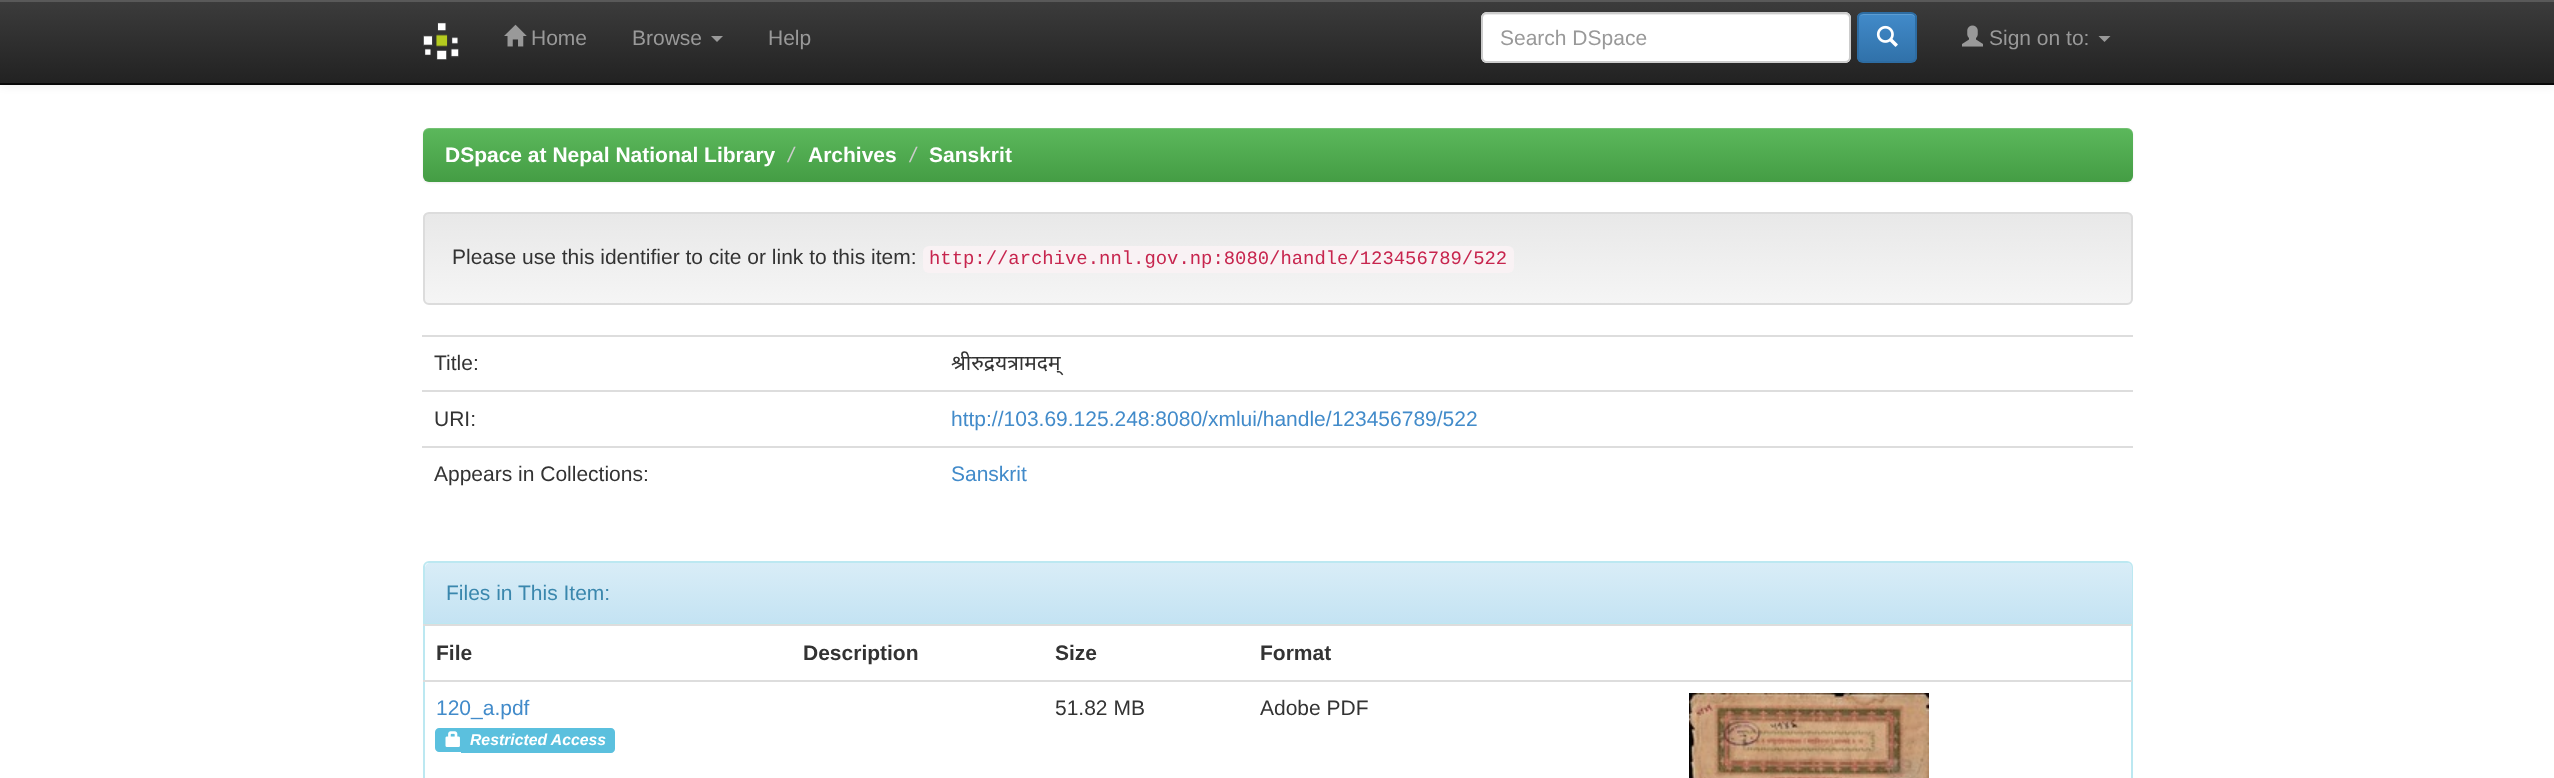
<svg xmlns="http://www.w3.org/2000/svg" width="2554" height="778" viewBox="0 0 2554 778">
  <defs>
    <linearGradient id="g1" gradientUnits="userSpaceOnUse" x1="1277" y1="0" x2="1277" y2="83"><stop offset="0" stop-color="rgb(60,60,60)"/><stop offset="1" stop-color="rgb(34,34,34)"/></linearGradient>
    <clipPath id="clip1"><rect x="1857" y="12" width="60" height="51" rx="6"/></clipPath>
    <linearGradient id="g2" gradientUnits="userSpaceOnUse" x1="1887" y1="13" x2="1887" y2="62"><stop offset="0" stop-color="rgb(66,139,202)"/><stop offset="1" stop-color="rgb(48,113,169)"/></linearGradient>
    <linearGradient id="g3" gradientUnits="userSpaceOnUse" x1="1278" y1="127" x2="1278" y2="182"><stop offset="0" stop-color="rgb(92,184,92)"/><stop offset="1" stop-color="rgb(68,157,68)"/></linearGradient>
    <clipPath id="clip2"><rect x="423" y="212" width="1710" height="93" rx="6"/></clipPath>
    <linearGradient id="g4" gradientUnits="userSpaceOnUse" x1="1278" y1="213" x2="1278" y2="303"><stop offset="0" stop-color="rgb(232,232,232)"/><stop offset="1" stop-color="rgb(245,245,245)"/></linearGradient>
    <linearGradient id="g5" gradientUnits="userSpaceOnUse" x1="1278" y1="562" x2="1278" y2="623"><stop offset="0" stop-color="rgb(217,237,247)"/><stop offset="1" stop-color="rgb(196,227,243)"/></linearGradient>
  </defs>
  <rect width="100%" height="100%" fill="rgb(255,255,255)"/>
  <rect x="0" y="2" width="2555" height="84" fill="rgba(0,0,0,0.07)" filter="blur(4px)"/>
  <rect x="0" y="2" width="2554" height="81" fill="url(#g1)"/>
  <rect x="0" y="0" width="2554" height="2" fill="rgb(89,89,89)"/>
  <rect x="0" y="83" width="2554" height="2" fill="rgb(8,8,8)"/>
  <image x="423" y="22" width="36" height="38" href="pic1.png"/>
  <image x="504" y="24" width="23" height="23" href="pic2.png"/>
  <g font-family="Liberation Sans" font-size="21" fill="rgb(153,153,153)">
    <text x="531" y="45">Home</text>
    <text x="632" y="45">Browse</text>
  </g>
  <path d="M711 36H723L717 42Z" fill="rgb(153,153,153)"/>
  <text x="768" y="45" font-family="Liberation Sans" font-size="21" fill="rgb(153,153,153)">Help</text>
  <rect x="1481" y="12" width="370" height="51" rx="6" fill="rgb(255,255,255)"/>
  <path d="M1486 15H1845C1847 15 1850 17 1850 20V19C1850 16 1848 14 1845 14H1487C1484 14 1482 16 1482 19V20C1482 17 1484 15 1486 15Z" fill="rgb(236,236,236)"/>
  <rect x="1482" y="13" width="368" height="49" rx="5" fill="none" stroke="rgb(204,204,204)" stroke-width="2"/>
  <text x="1500" y="45" font-family="Liberation Sans" font-size="21" fill="rgb(153,153,153)">Search DSpace</text>
  <g clip-path="url(#clip1)">
    <rect x="1857" y="14" width="60" height="48" fill="url(#g2)"/>
  </g>
  <path d="M1863 15H1911C1913 15 1916 17 1916 20V19C1916 16 1914 14 1911 14H1864C1862 14 1861 15 1860 16Z" fill="rgb(93,156,209)"/>
  <rect x="1858" y="13" width="58" height="49" rx="5" fill="none" stroke="rgb(45,108,162)" stroke-width="2"/>
  <image x="1876" y="25" width="22" height="22" href="pic3.png"/>
  <image x="1962" y="25" width="21" height="22" href="pic4.png"/>
  <text x="1989" y="45" font-family="Liberation Sans" font-size="21" fill="rgb(153,153,153)">Sign on to:</text>
  <path d="M2098.5 36H2110.5L2104.5 42Z" fill="rgb(153,153,153)"/>
  <rect x="423" y="129" width="1710" height="54" rx="6" fill="rgba(0,0,0,0.07)" filter="blur(1px)"/>
  <rect x="423" y="128" width="1710" height="54" rx="6" fill="url(#g3)"/>
  <path d="M429 129H2127C2130 129 2133 132 2133 135V134C2133 131 2130 128 2127 128H429C426 128 423 131 423 134V135C423 132 426 129 429 129Z" fill="rgba(255,255,255,0.15)"/>
  <text x="445" y="162" font-family="Liberation Sans" font-size="21" font-weight="bold" fill="rgb(255,255,255)">DSpace at Nepal National Library</text>
  <text x="788" y="162" font-family="Liberation Sans" font-size="21" font-style="italic" fill="rgb(204,204,204)">/</text>
  <text x="808" y="162" font-family="Liberation Sans" font-size="21" font-weight="bold" fill="rgb(255,255,255)">Archives</text>
  <text x="910" y="162" font-family="Liberation Sans" font-size="21" font-style="italic" fill="rgb(204,204,204)">/</text>
  <text x="929" y="162" font-family="Liberation Sans" font-size="21" font-weight="bold" fill="rgb(255,255,255)">Sanskrit</text>
  <g clip-path="url(#clip2)">
    <rect x="423" y="213" width="1710" height="90" fill="url(#g4)"/>
  </g>
  <rect x="424" y="213" width="1708" height="91" rx="5" fill="none" stroke="rgb(220,220,220)" stroke-width="2"/>
  <text x="452" y="264" font-family="Liberation Sans" font-size="21" fill="rgb(51,51,51)">Please use this identifier to cite or link to this item:</text>
  <rect x="923" y="246" width="591" height="27" rx="6" fill="rgb(249,242,244)"/>
  <text x="929" y="264" font-family="Liberation Mono" font-size="18.9" fill="rgb(199,37,78)">http://archive.nnl.gov.np:8080/handle/123456789/522</text>
  <text x="434" y="370" font-family="Liberation Sans" font-size="21" fill="rgb(51,51,51)">Title:</text>
  <rect x="422" y="335" width="1711" height="2" fill="rgb(221,221,221)"/>
  <text x="951" y="370" font-family="Noto Sans" font-size="21" fill="rgb(51,51,51)">श्रीरुद्रयत्रामदम्</text>
  <text x="434" y="426" font-family="Liberation Sans" font-size="21" fill="rgb(51,51,51)">URI:</text>
  <rect x="422" y="390" width="1711" height="2" fill="rgb(221,221,221)"/>
  <text x="951" y="426" font-family="Liberation Sans" font-size="21" fill="rgb(66,139,202)">http://103.69.125.248:8080/xmlui/handle/123456789/522</text>
  <text x="434" y="481" font-family="Liberation Sans" font-size="21" fill="rgb(51,51,51)">Appears in Collections:</text>
  <rect x="422" y="446" width="1711" height="2" fill="rgb(221,221,221)"/>
  <text x="951" y="481" font-family="Liberation Sans" font-size="21" fill="rgb(66,139,202)">Sanskrit</text>
  <rect x="424" y="562" width="1708" height="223" rx="5" fill="none" stroke="rgb(188,232,241)" stroke-width="2"/>
  <path d="M430 563H2127C2130 563 2132 565 2132 568V623H425V568C425 565 427 563 430 563Z" fill="url(#g5)"/>
  <rect x="425" y="623" width="1707" height="1" fill="rgb(188,232,241)"/>
  <text x="446" y="600" font-family="Liberation Sans" font-size="21" fill="rgb(58,135,173)">Files in This Item:</text>
  <rect x="423" y="624" width="1709" height="2" fill="rgb(221,221,221)"/>
  <g font-family="Liberation Sans" font-size="21" font-weight="bold" fill="rgb(51,51,51)">
    <text x="436" y="660">File</text>
    <text x="803" y="660">Description</text>
    <text x="1055" y="660">Size</text>
    <text x="1260" y="660">Format</text>
  </g>
  <rect x="423" y="680" width="1709" height="2" fill="rgb(221,221,221)"/>
  <image x="1689" y="693" width="240" height="85" href="pic5.png"/>
  <text x="436" y="715" font-family="Liberation Sans" font-size="21" fill="rgb(66,139,202)">120_a.pdf</text>
  <path d="M439 728H461V752H439C437 752 435 750 435 748V732C435 730 437 728 439 728Z" fill="rgb(91,192,222)"/>
  <path d="M461 728H611C613 728 615 730 615 732V749C615 751 613 753 611 753H461Z" fill="rgb(91,192,222)"/>
  <image x="445" y="731" width="15" height="16" href="pic6.png"/>
  <text x="470" y="745" font-family="Liberation Sans" font-size="15.75" font-weight="bold" font-style="italic" fill="rgb(255,255,255)">Restricted Access</text>
  <g font-family="Liberation Sans" font-size="21" fill="rgb(51,51,51)">
    <text x="1055" y="715">51.82 MB</text>
    <text x="1260" y="715">Adobe PDF</text>
  </g>
</svg>
